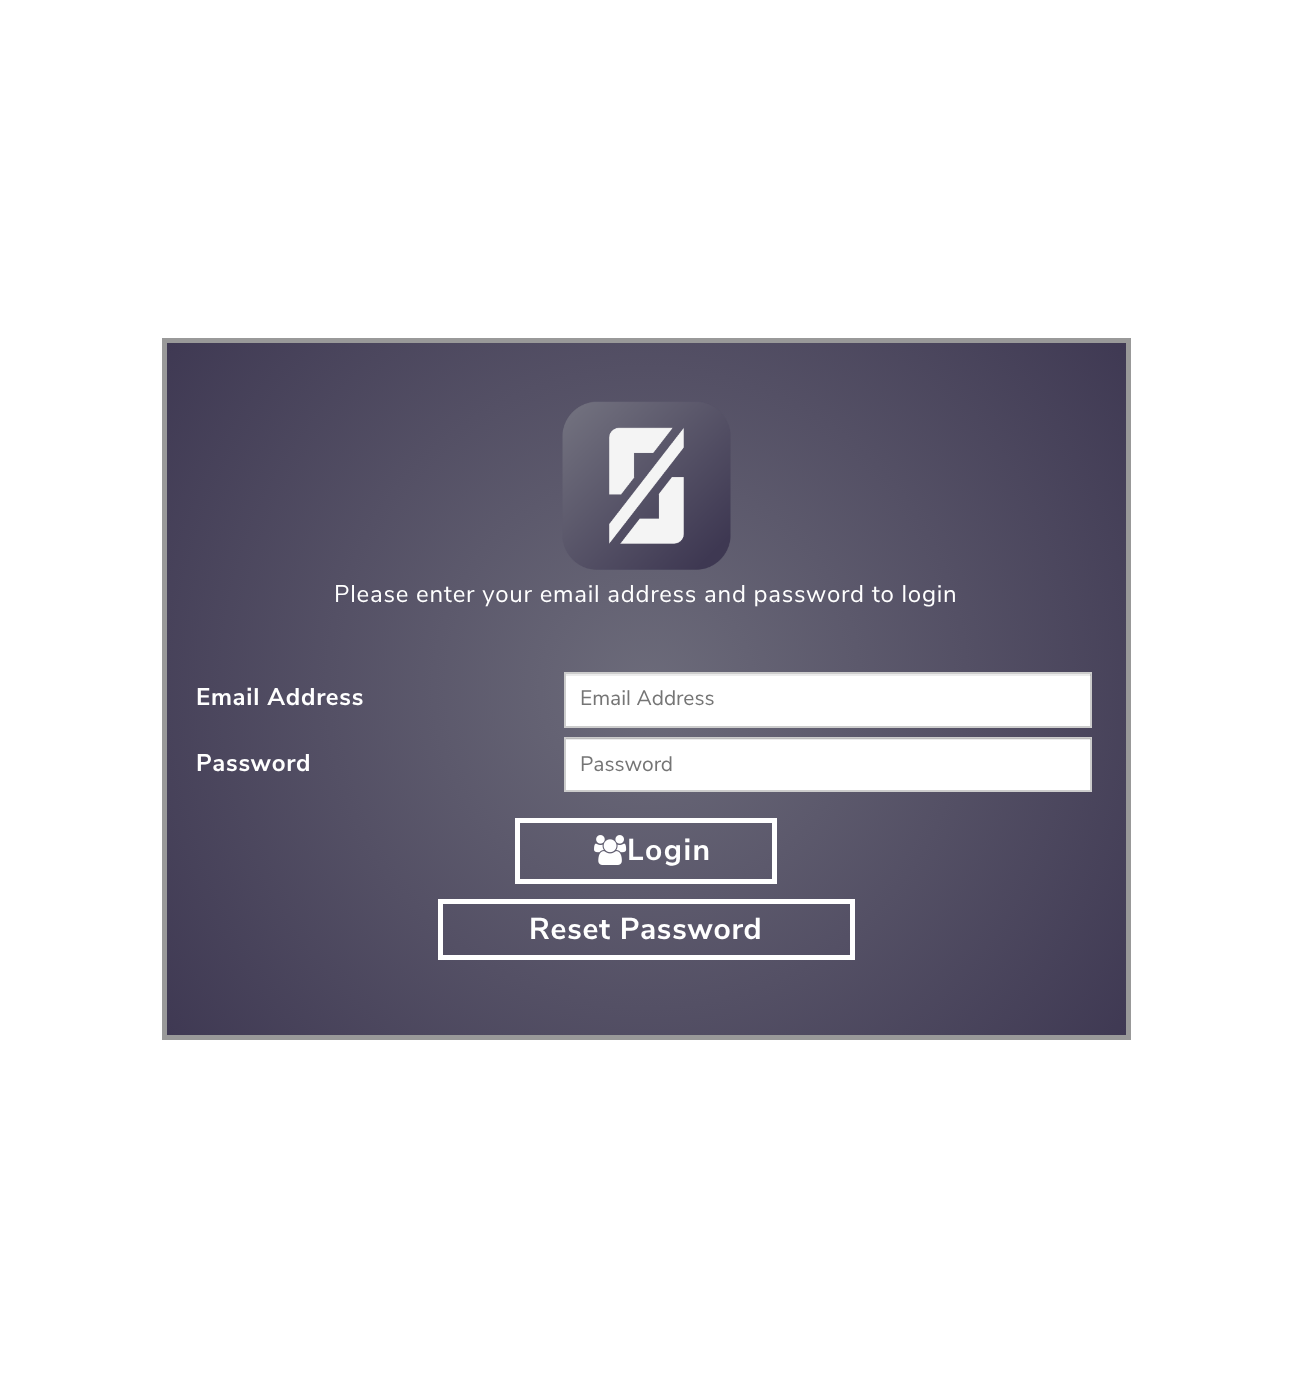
<svg xmlns="http://www.w3.org/2000/svg" width="1291" height="1375" viewBox="0 0 1291 1375">
  <defs>
    <radialGradient id="g1" gradientUnits="userSpaceOnUse" cx="647" cy="688" r="592"><stop offset="0" stop-color="rgb(108,107,122)"/><stop offset="0.54" stop-color="rgb(84,80,101)"/><stop offset="1" stop-color="rgb(63,57,83)"/></radialGradient>
  </defs>
  <rect width="100%" height="100%" fill="rgb(255,255,255)"/>
  <rect x="167" y="343" width="959" height="692" fill="url(#g1)"/>
  <rect x="164.5" y="340.5" width="964" height="697" fill="none" stroke="rgb(153,153,153)" stroke-width="5"/>
  <image x="562" y="401" width="169" height="169" href="pic1.png"/>
  <text x="334" y="602" font-family="Nunito Sans" font-size="24" letter-spacing="0.75" fill="rgb(255,255,255)">Please enter your email address and password to login</text>
  <text x="196" y="705" font-family="Nunito Sans" font-size="24" font-weight="bold" letter-spacing="0.75" fill="rgb(255,255,255)">Email Address</text>
  <rect x="564" y="672" width="528" height="56" fill="rgb(255,255,255)"/>
  <rect x="566" y="674" width="525" height="2" fill="rgb(236,236,236)"/>
  <rect x="565" y="673" width="526" height="54" fill="none" stroke="rgba(0,0,0,0.2)" stroke-width="2"/>
  <text x="580" y="705" font-family="Nunito Sans" font-size="21" fill="rgb(117,117,117)">Email Address</text>
  <text x="196" y="771" font-family="Nunito Sans" font-size="24" font-weight="bold" letter-spacing="0.75" fill="rgb(255,255,255)">Password</text>
  <rect x="564" y="737" width="528" height="55" fill="rgb(255,255,255)"/>
  <rect x="566" y="738" width="525" height="2" fill="rgb(236,236,236)"/>
  <rect x="565" y="738" width="526" height="53" fill="none" stroke="rgba(0,0,0,0.2)" stroke-width="2"/>
  <text x="580" y="771" font-family="Nunito Sans" font-size="21" fill="rgb(117,117,117)">Password</text>
  <rect x="517.5" y="820.5" width="257" height="61" fill="none" stroke="rgb(255,255,255)" stroke-width="5"/>
  <image x="594" y="835" width="33" height="30" href="pic2.png"/>
  <text x="627" y="860" font-family="Nunito Sans" font-size="30" font-weight="bold" letter-spacing="1.5" fill="rgb(255,255,255)">Login</text>
  <rect x="440.5" y="901.5" width="412" height="56" fill="none" stroke="rgb(255,255,255)" stroke-width="5"/>
  <text x="529" y="939" font-family="Nunito Sans" font-size="30" font-weight="bold" letter-spacing="0.75" fill="rgb(255,255,255)">Reset Password</text>
</svg>
